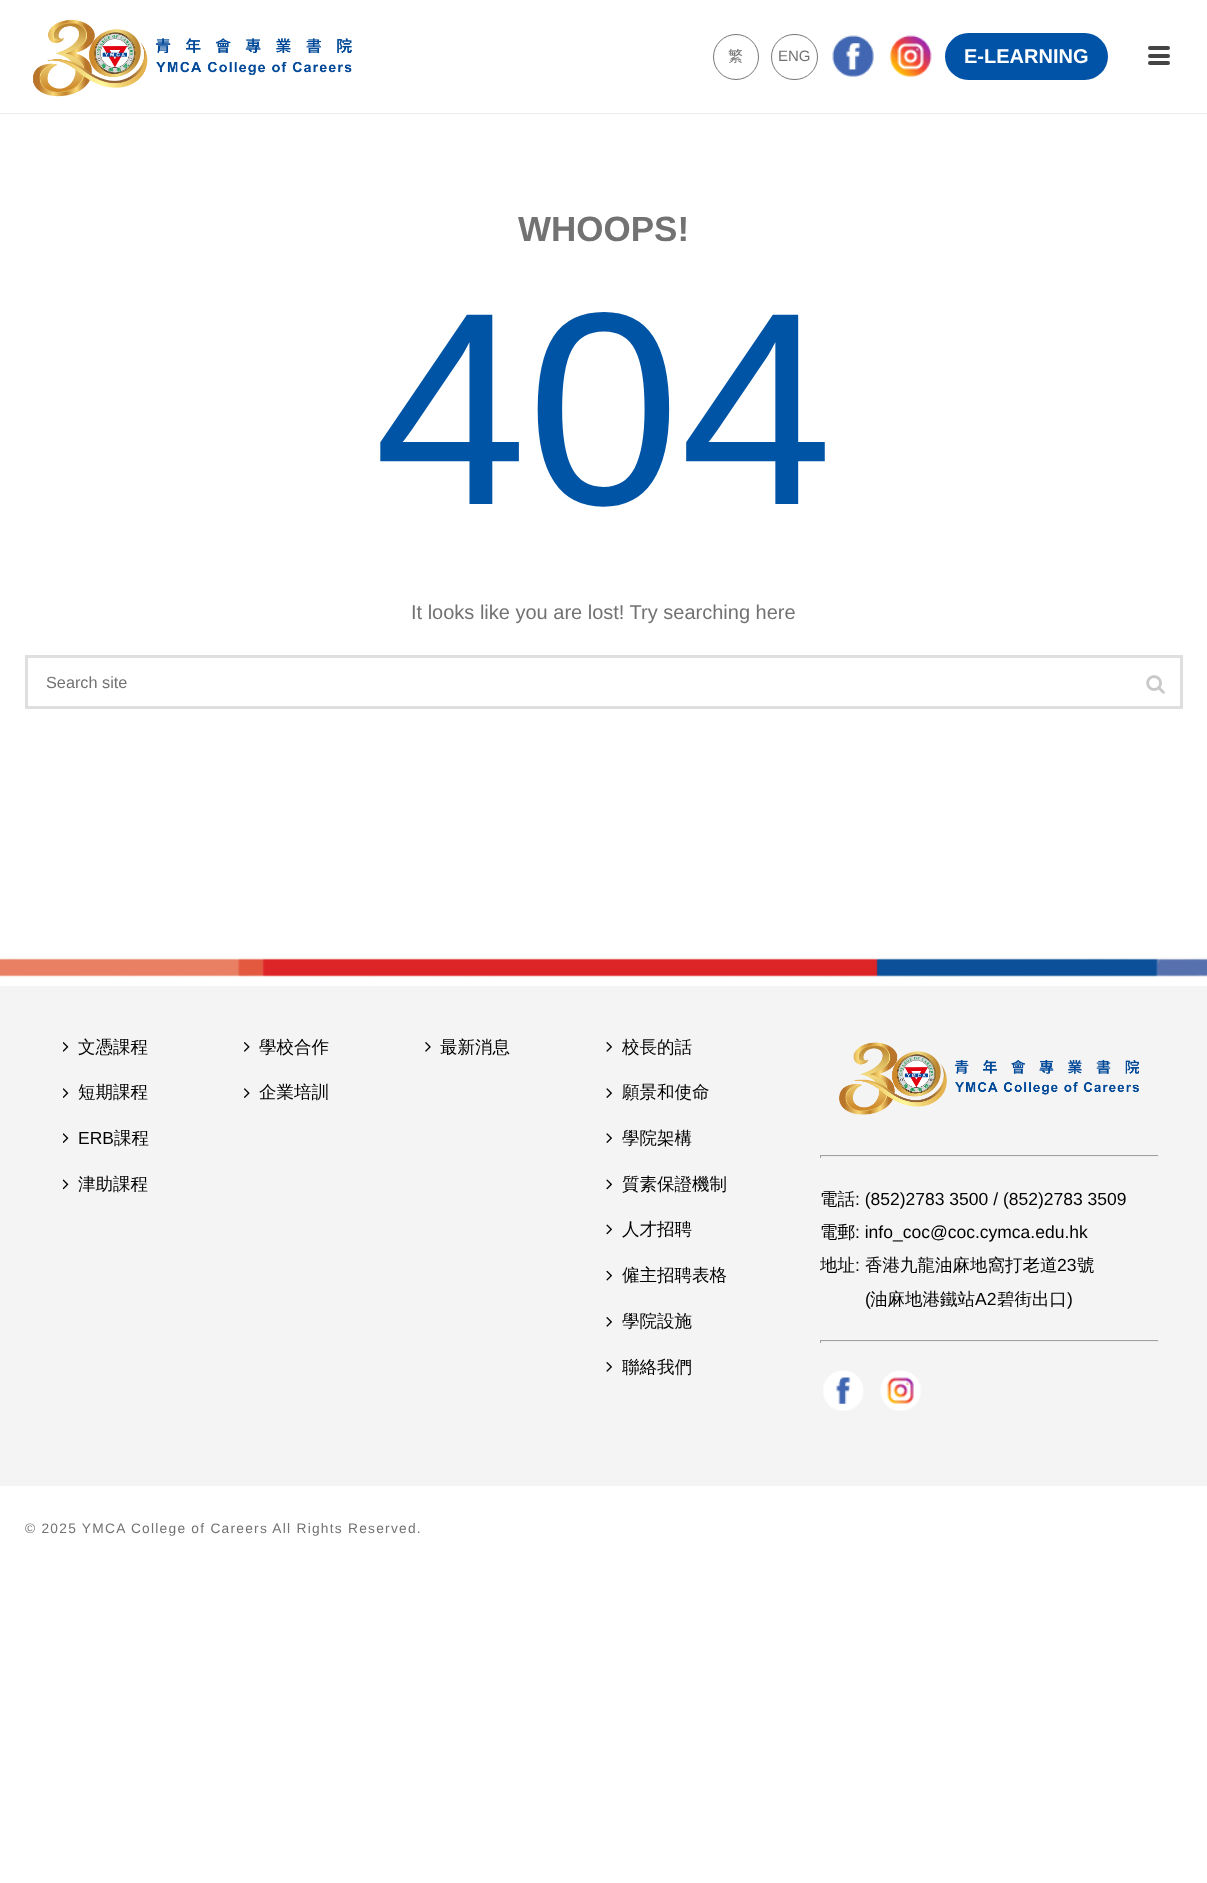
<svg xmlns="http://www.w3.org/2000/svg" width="1207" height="1883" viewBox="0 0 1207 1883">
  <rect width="100%" height="100%" fill="rgb(255,255,255)"/>
  <rect x="0" y="113" width="1207" height="1" fill="rgb(237,237,237)"/>
  <image x="33" y="19" width="319" height="78" href="pic1.png"/>
  <circle cx="736" cy="57" r="22.5" fill="none" stroke="rgb(119,119,119)"/>
  <text x="728" y="61" font-family="WenQuanYi Zen Hei" font-size="15" font-weight="500" fill="rgb(114,114,114)">繁</text>
  <rect x="771.5" y="34.5" width="46" height="45" rx="22.5" fill="none" stroke="rgb(119,119,119)"/>
  <text x="778" y="61" font-family="Liberation Sans" font-size="15" fill="rgb(114,114,114)">ENG</text>
  <image x="832" y="35" width="42" height="42" href="pic2.png"/>
  <image x="889" y="35" width="43" height="42" href="pic3.png"/>
  <rect x="945" y="33" width="163" height="47" rx="23.5" fill="rgb(0,83,166)"/>
  <text x="964" y="63" font-family="Liberation Sans" font-size="20" font-weight="bold" fill="rgb(255,255,255)">E-LEARNING</text>
  <rect x="1148" y="46" width="22" height="4" rx="2" fill="rgb(68,68,68)"/>
  <rect x="1148" y="54" width="22" height="4" rx="2" fill="rgb(68,68,68)"/>
  <rect x="1148" y="61" width="22" height="4" rx="2" fill="rgb(68,68,68)"/>
  <text x="518" y="241" font-family="Liberation Sans" font-size="35" font-weight="bold" fill="rgb(114,114,114)">WHOOPS!</text>
  <text x="374" y="504" font-family="Liberation Sans" font-size="275" fill="rgb(0,84,166)">404</text>
  <text x="411" y="619" font-family="Liberation Sans" font-size="20" fill="rgb(114,114,114)">It looks like you are lost! Try searching here</text>
  <rect x="26.5" y="656.5" width="1155" height="51" fill="none" stroke="rgb(223,223,223)" stroke-width="3"/>
  <text x="46" y="688" font-family="Liberation Sans" font-size="16.25" fill="rgb(114,114,114)">Search site</text>
  <image x="1146" y="675" width="19" height="19" href="pic4.png"/>
  <rect x="0" y="946" width="1207" height="540" fill="rgb(244,244,244)"/>
  <image x="0" y="946" width="1207" height="40" href="pic5.png"/>
  <image x="63" y="1042" width="6" height="10" href="pic6.png"/>
  <text x="78" y="1053" font-family="WenQuanYi Zen Hei" font-size="17.5" font-weight="500" fill="rgb(0,0,0)">文憑課程</text>
  <image x="63" y="1088" width="6" height="10" href="pic7.png"/>
  <text x="78" y="1098" font-family="WenQuanYi Zen Hei" font-size="17.5" font-weight="500" fill="rgb(0,0,0)">短期課程</text>
  <image x="63" y="1133" width="6" height="10" href="pic7.png"/>
  <text x="78" y="1144" font-family="Liberation Sans" font-size="17.5" fill="rgb(0,0,0)">ERB</text>
  <text x="114" y="1144" font-family="WenQuanYi Zen Hei" font-size="17.5" font-weight="500" fill="rgb(0,0,0)">課程</text>
  <image x="63" y="1179" width="6" height="11" href="pic8.png"/>
  <text x="78" y="1190" font-family="WenQuanYi Zen Hei" font-size="17.5" font-weight="500" fill="rgb(0,0,0)">津助課程</text>
  <image x="244" y="1042" width="6" height="10" href="pic9.png"/>
  <text x="259" y="1053" font-family="WenQuanYi Zen Hei" font-size="17.5" font-weight="500" fill="rgb(0,0,0)">學校合作</text>
  <image x="244" y="1088" width="6" height="10" href="pic10.png"/>
  <text x="259" y="1098" font-family="WenQuanYi Zen Hei" font-size="17.5" font-weight="500" fill="rgb(0,0,0)">企業培訓</text>
  <image x="425" y="1042" width="6" height="10" href="pic11.png"/>
  <text x="440" y="1053" font-family="WenQuanYi Zen Hei" font-size="17.5" font-weight="500" fill="rgb(0,0,0)">最新消息</text>
  <image x="606" y="1042" width="6" height="10" href="pic12.png"/>
  <text x="622" y="1053" font-family="WenQuanYi Zen Hei" font-size="17.5" font-weight="500" fill="rgb(0,0,0)">校長的話</text>
  <image x="606" y="1088" width="6" height="10" href="pic13.png"/>
  <text x="622" y="1098" font-family="WenQuanYi Zen Hei" font-size="17.5" font-weight="500" fill="rgb(0,0,0)">願景和使命</text>
  <image x="606" y="1133" width="6" height="10" href="pic13.png"/>
  <text x="622" y="1144" font-family="WenQuanYi Zen Hei" font-size="17.5" font-weight="500" fill="rgb(0,0,0)">學院架構</text>
  <image x="606" y="1179" width="6" height="11" href="pic14.png"/>
  <text x="622" y="1190" font-family="WenQuanYi Zen Hei" font-size="17.5" font-weight="500" fill="rgb(0,0,0)">質素保證機制</text>
  <image x="606" y="1224" width="6" height="11" href="pic14.png"/>
  <text x="622" y="1235" font-family="WenQuanYi Zen Hei" font-size="17.5" font-weight="500" fill="rgb(0,0,0)">人才招聘</text>
  <image x="606" y="1270" width="6" height="11" href="pic15.png"/>
  <text x="622" y="1281" font-family="WenQuanYi Zen Hei" font-size="17.5" font-weight="500" fill="rgb(0,0,0)">僱主招聘表格</text>
  <image x="606" y="1317" width="6" height="10" href="pic12.png"/>
  <text x="622" y="1327" font-family="WenQuanYi Zen Hei" font-size="17.5" font-weight="500" fill="rgb(0,0,0)">學院設施</text>
  <image x="606" y="1362" width="6" height="10" href="pic12.png"/>
  <text x="622" y="1373" font-family="WenQuanYi Zen Hei" font-size="17.5" font-weight="500" fill="rgb(0,0,0)">聯絡我們</text>
  <image x="839" y="1042" width="301" height="73" href="pic16.png"/>
  <rect x="820" y="1155" width="339" height="1" fill="rgb(159,159,159)"/>
  <rect x="1158" y="1155" width="1" height="3" fill="rgb(238,238,238)"/>
  <rect x="820" y="1156" width="339" height="1" fill="rgb(238,238,238)"/>
  <rect x="820" y="1155" width="1" height="3" fill="rgb(159,159,159)"/>
  <text x="820" y="1205" font-family="WenQuanYi Zen Hei" font-size="17.5" font-weight="500" fill="rgb(0,0,0)">電話</text>
  <text x="855" y="1205" font-family="Liberation Sans" font-size="17.5" fill="rgb(0,0,0)">: (852)2783 3500 / (852)2783 3509</text>
  <text x="820" y="1238" font-family="WenQuanYi Zen Hei" font-size="17.5" font-weight="500" fill="rgb(0,0,0)">電郵</text>
  <text x="855" y="1238" font-family="Liberation Sans" font-size="17.5" fill="rgb(0,0,0)">: info_coc@coc.cymca.edu.hk</text>
  <text x="820" y="1271" font-family="WenQuanYi Zen Hei" font-size="17.5" font-weight="500" fill="rgb(0,0,0)">地址</text>
  <text x="855" y="1271" font-family="Liberation Sans" font-size="17.5" fill="rgb(0,0,0)">:</text>
  <text x="865" y="1271" font-family="WenQuanYi Zen Hei" font-size="17.5" font-weight="500" fill="rgb(0,0,0)">香港九龍油麻地窩打老道</text>
  <text x="1057" y="1271" font-family="Liberation Sans" font-size="17.5" fill="rgb(0,0,0)">23</text>
  <text x="1077" y="1271" font-family="WenQuanYi Zen Hei" font-size="17.5" font-weight="500" fill="rgb(0,0,0)">號</text>
  <text x="865" y="1305" font-family="Liberation Sans" font-size="17.5" fill="rgb(0,0,0)">(</text>
  <text x="870" y="1305" font-family="WenQuanYi Zen Hei" font-size="17.5" font-weight="500" fill="rgb(0,0,0)">油麻地港鐵站</text>
  <text x="975" y="1305" font-family="Liberation Sans" font-size="17.5" fill="rgb(0,0,0)">A2</text>
  <text x="997" y="1305" font-family="WenQuanYi Zen Hei" font-size="17.5" font-weight="500" fill="rgb(0,0,0)">碧街出口</text>
  <text x="1067" y="1305" font-family="Liberation Sans" font-size="17.5" fill="rgb(0,0,0)">)</text>
  <rect x="820" y="1340" width="339" height="1" fill="rgb(159,159,159)"/>
  <rect x="1158" y="1340" width="1" height="3" fill="rgb(238,238,238)"/>
  <rect x="820" y="1341" width="339" height="1" fill="rgb(238,238,238)"/>
  <rect x="820" y="1340" width="1" height="3" fill="rgb(159,159,159)"/>
  <image x="823" y="1370" width="41" height="41" href="pic17.png"/>
  <image x="880" y="1370" width="41" height="41" href="pic18.png"/>
  <text x="25" y="1533" font-family="Liberation Sans" font-size="13.75" letter-spacing="1.25" fill="rgb(114,114,114)">© 2025 YMCA College of Careers All Rights Reserved.</text>
</svg>
